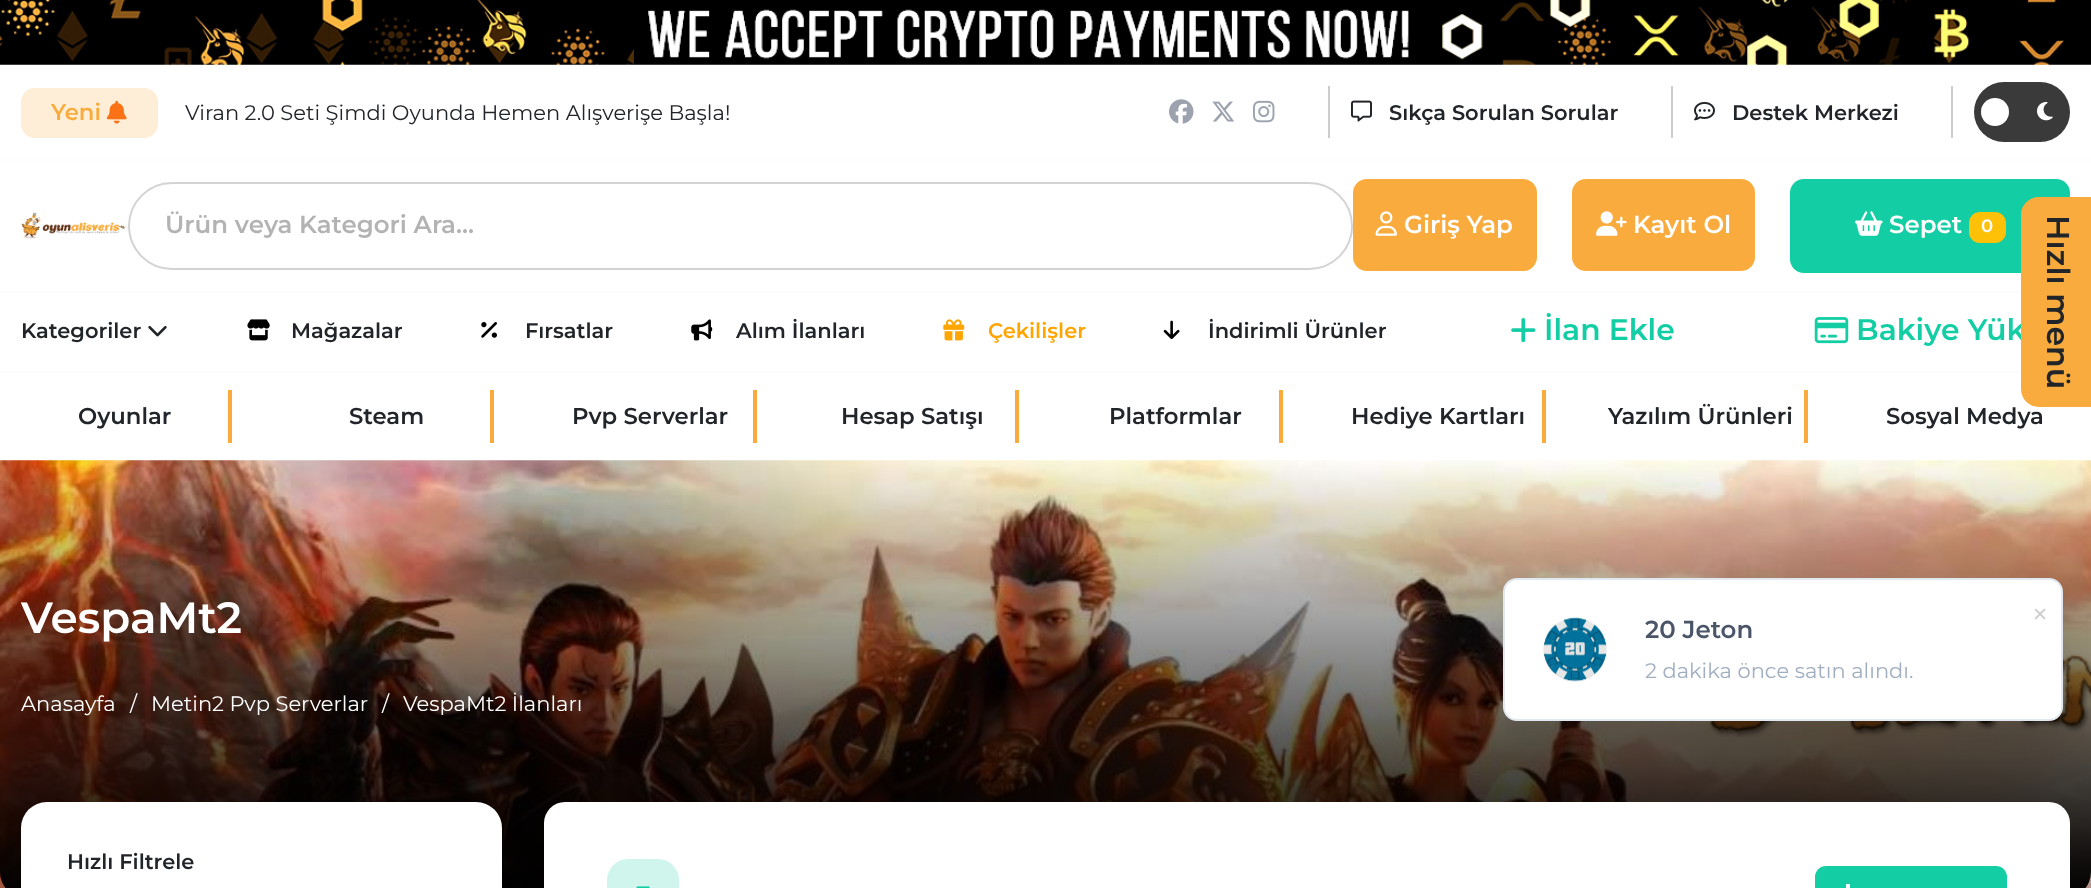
<svg xmlns="http://www.w3.org/2000/svg" width="2091" height="888" viewBox="0 0 2091 888">
  <defs>
    <linearGradient id="g1" gradientUnits="userSpaceOnUse" x1="1046" y1="460" x2="1046" y2="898"><stop offset="0" stop-color="rgb(0,0,0)" stop-opacity="0"/><stop offset="1" stop-color="rgb(0,0,0)"/></linearGradient>
  </defs>
  <rect width="100%" height="100%" fill="rgb(255,255,255)"/>
  <image x="0" y="0" width="2091" height="65" href="pic1.png"/>
  <rect x="21" y="88" width="137" height="50" rx="14" fill="rgb(254,238,216)"/>
  <text x="51" y="120" font-family="Montserrat" font-size="22.75" font-weight="600" fill="rgb(249,172,61)">Yeni</text>
  <image x="106" y="100" width="21" height="24" href="pic2.png"/>
  <text x="185" y="120" font-family="Montserrat" font-size="21" fill="rgb(33,37,41)">Viran 2.0 Seti Şimdi Oyunda Hemen Alışverişe Başla!</text>
  <rect x="1328" y="86" width="2" height="52" fill="rgb(204,204,204)"/>
  <image x="1169" y="99" width="25" height="25" href="pic3.png"/>
  <image x="1212" y="101" width="23" height="21" href="pic4.png"/>
  <image x="1253" y="100" width="22" height="23" href="pic5.png"/>
  <rect x="1671" y="86" width="2" height="52" fill="rgb(204,204,204)"/>
  <image x="1351" y="100" width="21" height="22" href="pic6.png"/>
  <text x="1389" y="120" font-family="Montserrat" font-size="21" font-weight="600" fill="rgb(33,37,41)">Sıkça Sorulan Sorular</text>
  <rect x="1951" y="86" width="2" height="52" fill="rgb(204,204,204)"/>
  <image x="1694" y="101" width="21" height="20" href="pic7.png"/>
  <text x="1732" y="120" font-family="Montserrat" font-size="21" font-weight="600" fill="rgb(33,37,41)">Destek Merkezi</text>
  <rect x="1974" y="82" width="96" height="60" rx="30" fill="rgb(58,58,58)"/>
  <circle cx="1995" cy="112" r="14" fill="rgb(255,255,255)"/>
  <image x="2037" y="101" width="16" height="20" href="pic8.png"/>
  <rect x="0" y="159" width="2091" height="2" fill="rgb(252,252,253)"/>
  <image x="21" y="212" width="105" height="27" href="pic9.png"/>
  <rect x="129" y="183" width="1223" height="86" rx="43" fill="none" stroke="rgb(211,211,211)" stroke-width="2"/>
  <text x="165" y="233" font-family="Montserrat" font-size="24.5" font-weight="600" fill="rgb(179,179,179)">Ürün veya Kategori Ara...</text>
  <rect x="1353" y="179" width="184" height="92" rx="14" fill="rgb(249,172,61)"/>
  <image x="1375" y="211" width="22" height="25" href="pic10.png"/>
  <text x="1404" y="233" font-family="Montserrat" font-size="24.5" font-weight="600" fill="rgb(255,255,255)">Giriş Yap</text>
  <rect x="1572" y="179" width="183" height="92" rx="14" fill="rgb(249,172,61)"/>
  <image x="1596" y="211" width="31" height="25" href="pic11.png"/>
  <text x="1633" y="233" font-family="Montserrat" font-size="24.5" font-weight="600" fill="rgb(255,255,255)">Kayıt Ol</text>
  <rect x="1790" y="179" width="280" height="94" rx="14" fill="rgb(19,206,164)"/>
  <image x="1855" y="211" width="28" height="25" href="pic12.png"/>
  <text x="1889" y="233" font-family="Montserrat" font-size="24.5" font-weight="600" fill="rgb(255,255,255)">Sepet</text>
  <rect x="1969" y="212" width="37" height="31" rx="11" fill="rgb(255,193,7)"/>
  <text x="1981" y="232" font-family="Montserrat" font-size="18" font-weight="600" fill="rgb(255,255,255)">0</text>
  <rect x="0" y="291" width="2021" height="2" fill="rgb(252,252,253)"/>
  <text x="21" y="338" font-family="Montserrat" font-size="21" font-weight="600" fill="rgb(33,37,41)">Kategoriler</text>
  <image x="148" y="325" width="19" height="12" href="pic13.png"/>
  <image x="247" y="319" width="23" height="22" href="pic14.png"/>
  <text x="291" y="338" font-family="Montserrat" font-size="21" font-weight="600" fill="rgb(33,37,41)">Mağazalar</text>
  <image x="481" y="322" width="16" height="16" href="pic15.png"/>
  <text x="525" y="338" font-family="Montserrat" font-size="21" font-weight="600" fill="rgb(33,37,41)">Fırsatlar</text>
  <image x="691" y="319" width="22" height="22" href="pic16.png"/>
  <text x="736" y="338" font-family="Montserrat" font-size="21" font-weight="600" fill="rgb(33,37,41)">Alım İlanları</text>
  <image x="943" y="319" width="22" height="22" href="pic17.png"/>
  <text x="988" y="338" font-family="Montserrat" font-size="21" font-weight="600" fill="rgb(255,165,0)">Çekilişler</text>
  <image x="1163" y="320" width="17" height="19" href="pic18.png"/>
  <text x="1208" y="338" font-family="Montserrat" font-size="21" font-weight="600" fill="rgb(33,37,41)">İndirimli Ürünler</text>
  <image x="1511" y="318" width="25" height="25" href="pic19.png"/>
  <text x="1544" y="340" font-family="Montserrat" font-size="29.75" font-weight="600" fill="rgb(19,206,164)">İlan Ekle</text>
  <image x="1814" y="317" width="35" height="27" href="pic20.png"/>
  <text x="1856" y="340" font-family="Montserrat" font-size="29.75" font-weight="600" fill="rgb(19,206,164)">Bakiye Yük</text>
  <rect x="0" y="371" width="2021" height="2" fill="rgb(252,252,253)"/>
  <rect x="228" y="390" width="4" height="53" fill="rgb(249,172,61)"/>
  <text x="78" y="424" font-family="Montserrat" font-size="22.75" font-weight="600" fill="rgb(33,37,41)">Oyunlar</text>
  <rect x="490" y="390" width="4" height="53" fill="rgb(249,172,61)"/>
  <text x="349" y="424" font-family="Montserrat" font-size="22.75" font-weight="600" fill="rgb(33,37,41)">Steam</text>
  <rect x="753" y="390" width="4" height="53" fill="rgb(249,172,61)"/>
  <text x="572" y="424" font-family="Montserrat" font-size="22.75" font-weight="600" fill="rgb(33,37,41)">Pvp Serverlar</text>
  <rect x="1015" y="390" width="4" height="53" fill="rgb(249,172,61)"/>
  <text x="841" y="424" font-family="Montserrat" font-size="22.75" font-weight="600" fill="rgb(33,37,41)">Hesap Satışı</text>
  <rect x="1279" y="390" width="4" height="53" fill="rgb(249,172,61)"/>
  <text x="1109" y="424" font-family="Montserrat" font-size="22.75" font-weight="600" fill="rgb(33,37,41)">Platformlar</text>
  <rect x="1542" y="390" width="4" height="53" fill="rgb(249,172,61)"/>
  <text x="1351" y="424" font-family="Montserrat" font-size="22.75" font-weight="600" fill="rgb(33,37,41)">Hediye Kartları</text>
  <rect x="1804" y="390" width="4" height="53" fill="rgb(249,172,61)"/>
  <g font-family="Montserrat" font-size="22.75" font-weight="600" fill="rgb(33,37,41)">
    <text x="1608" y="424">Yazılım Ürünleri</text>
    <text x="1886" y="424">Sosyal Medya</text>
  </g>
  <path d="M2091 197V407H2039C2029 407 2021 399 2021 389V214C2021 205 2029 197 2039 197Z" fill="rgb(249,172,61)"/>
  <text x="2047" y="215" transform="rotate(90 2047 215)" font-family="Montserrat" font-size="31.5" font-weight="600" fill="rgb(33,37,41)">Hızlı menü</text>
  <image x="0" y="460" width="2091" height="428" href="pic21.png"/>
  <rect x="0" y="460" width="2091" height="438" rx="26" fill="url(#g1)"/>
  <text x="21" y="633" font-family="Montserrat" font-size="43.75" font-weight="600" fill="rgb(255,255,255)">VespaMt2</text>
  <g font-family="Montserrat" font-size="21" fill="rgb(255,255,255)">
    <text x="21" y="711">Anasayfa</text>
    <text x="130" y="711">/</text>
    <text x="151" y="711">Metin2 Pvp Serverlar</text>
    <text x="382" y="711">/</text>
    <text x="403" y="711">VespaMt2 İlanları</text>
  </g>
  <rect x="21" y="802" width="481" height="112" rx="26" fill="rgb(255,255,255)"/>
  <text x="67" y="869" font-family="Montserrat" font-size="21" font-weight="600" fill="rgb(33,37,41)">Hızlı Filtrele</text>
  <rect x="544" y="802" width="1526" height="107" rx="21" fill="rgb(255,255,255)"/>
  <rect x="607" y="859" width="72" height="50" rx="21" fill="rgb(207,245,237)"/>
  <image x="636" y="886" width="14" height="2" href="pic22.png"/>
  <rect x="1815" y="866" width="192" height="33" rx="11" fill="rgb(19,206,164)"/>
  <rect x="1846" y="884" width="4" height="4" fill="rgb(255,255,255)"/>
  <rect x="1503" y="595" width="560" height="144" rx="14" fill="rgba(0,0,0,0.1)" filter="blur(13px)"/>
  <rect x="1504" y="579" width="558" height="141" rx="13" fill="rgb(255,255,255)" stroke="rgb(226,232,240)" stroke-width="2"/>
  <text x="2031" y="625" font-family="Montserrat" font-size="31.5" fill="rgb(204,204,204)">×</text>
  <image x="1543" y="617" width="64" height="65" href="pic23.png"/>
  <text x="1645" y="638" font-family="Montserrat" font-size="24.5" font-weight="600" fill="rgb(74,85,104)">20 Jeton</text>
  <text x="1645" y="678" font-family="Montserrat" font-size="21" fill="rgb(160,174,192)">2 dakika önce satın alındı.</text>
</svg>
